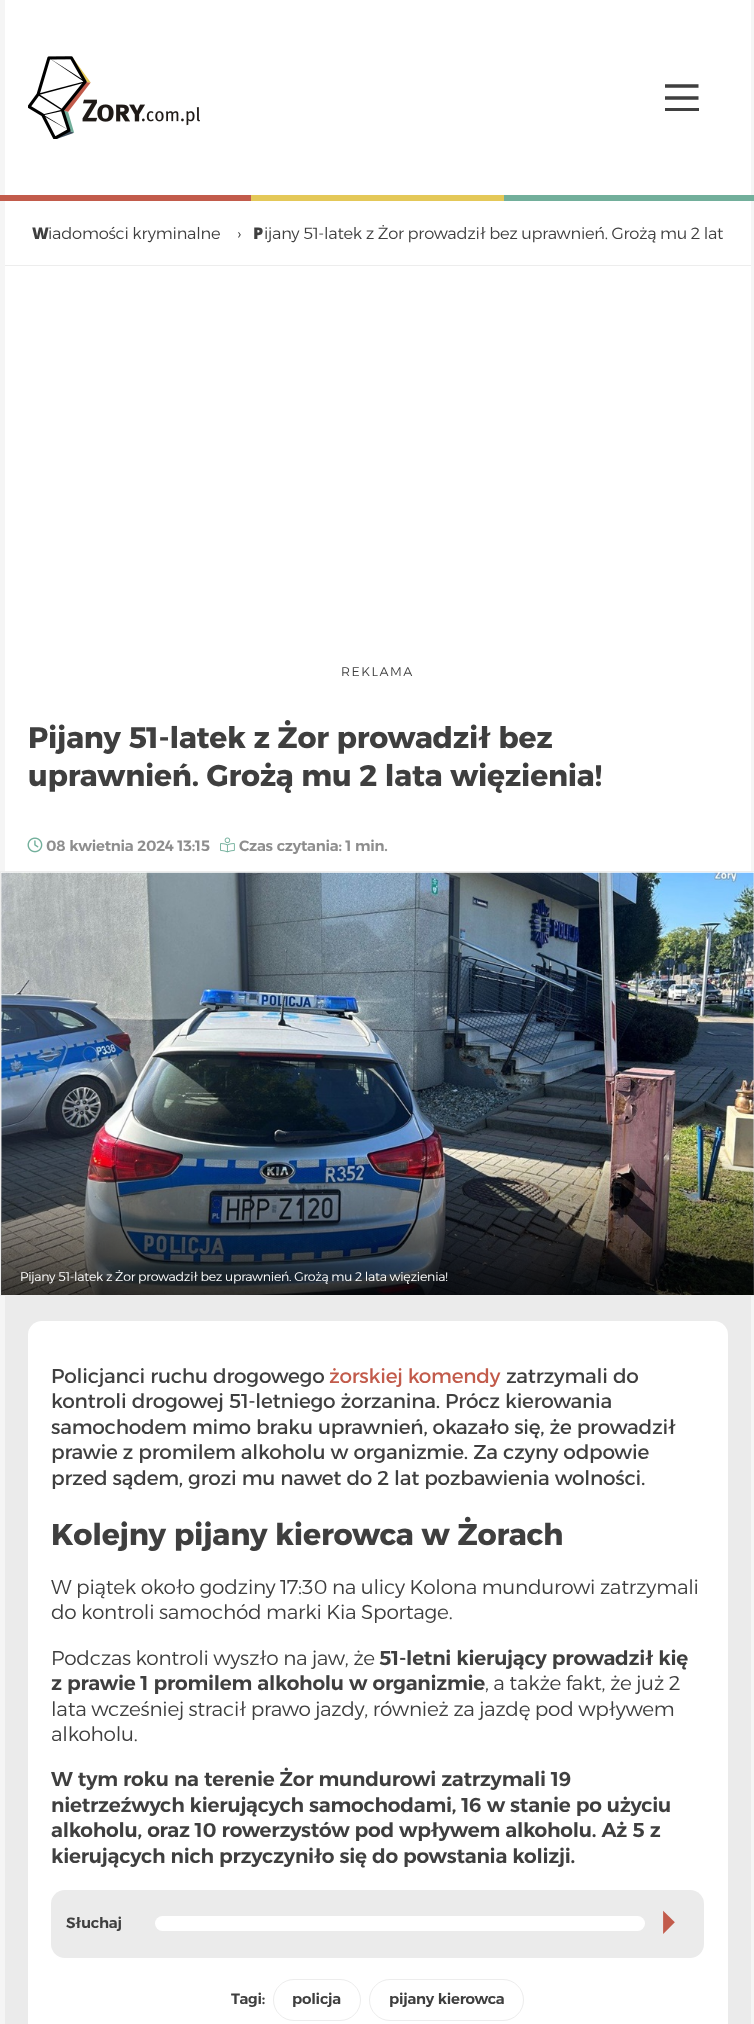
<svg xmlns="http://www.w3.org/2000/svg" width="754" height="2024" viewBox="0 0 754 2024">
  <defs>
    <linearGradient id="g1" gradientUnits="userSpaceOnUse" x1="378" y1="1295" x2="378" y2="1156"><stop offset="0" stop-color="rgb(0,0,0)" stop-opacity="0.75"/><stop offset="0.75" stop-color="rgb(0,0,0)" stop-opacity="0.25"/><stop offset="1" stop-color="rgb(0,0,0)" stop-opacity="0"/></linearGradient>
  </defs>
  <rect width="100%" height="100%" fill="rgb(245,245,245)"/>
  <rect x="5" y="0" width="746" height="195" fill="rgb(255,255,255)"/>
  <image x="28" y="56" width="172" height="83" href="pic1.png"/>
  <path d="M665 86H698.5M665 98H698.5" fill="none" stroke="rgb(63,63,63)" stroke-width="3.3"/>
  <rect x="665" y="108" width="34" height="3" fill="rgb(63,63,63)"/>
  <rect x="0" y="195" width="251" height="6" fill="rgb(194,91,75)"/>
  <rect x="251" y="195" width="253" height="6" fill="rgb(228,200,88)"/>
  <rect x="504" y="195" width="250" height="6" fill="rgb(114,175,155)"/>
  <rect x="5" y="201" width="746" height="64" fill="rgb(255,255,255)"/>
  <rect x="5" y="265" width="746" height="1" fill="rgb(237,237,237)"/>
  <text x="32" y="239" font-family="Noto Sans" font-size="16.25" font-weight="900" letter-spacing="-0.22" fill="rgb(63,63,63)">W</text>
  <g font-family="Alexandria" font-size="16.25" font-weight="300" letter-spacing="-0.22" fill="rgb(63,63,63)">
    <text x="48" y="239">iadomości kryminalne</text>
    <text x="237" y="239">›</text>
  </g>
  <text x="253" y="239" font-family="Noto Sans" font-size="16.25" font-weight="900" letter-spacing="-0.22" fill="rgb(63,63,63)">P</text>
  <text x="264" y="239" font-family="Alexandria" font-size="16.25" font-weight="300" letter-spacing="-0.22" fill="rgb(63,63,63)">ijany 51-latek z Żor prowadził bez uprawnień. Grożą mu 2 lat</text>
  <rect x="5" y="266" width="746" height="605" fill="rgb(255,255,255)"/>
  <text x="341" y="676" font-family="Alexandria" font-size="12.55" font-weight="300" letter-spacing="1.5" fill="rgb(63,63,63)">REKLAMA</text>
  <g font-family="Alexandria" font-size="29.75" font-weight="bold" letter-spacing="-0.22" fill="rgb(63,63,63)">
    <text>
      <tspan x="28" y="748">Pijany 51-latek z Żor prowadził bez</tspan>
      <tspan x="28" y="786">uprawnień. Grożą mu 2 lata więzienia!</tspan>
    </text>
  </g>
  <image x="27" y="837" width="16" height="16" href="pic2.png"/>
  <text x="46" y="851" font-family="Alexandria" font-size="14.9" font-weight="600" letter-spacing="-0.22" fill="rgb(142,142,142)">08 kwietnia 2024 13:15</text>
  <image x="220" y="837" width="15" height="16" href="pic3.png"/>
  <text x="239" y="851" font-family="Alexandria" font-size="14.9" font-weight="600" letter-spacing="-0.22" fill="rgb(142,142,142)">Czas czytania: 1 min.</text>
  <rect x="1" y="872" width="753" height="1" fill="rgb(255,255,255)"/>
  <rect x="0.5" y="871.5" width="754" height="424" fill="none" stroke="rgb(237,237,237)"/>
  <rect x="1" y="873" width="753" height="422" fill="rgb(235,235,235)"/>
  <image x="1" y="872" width="753" height="423" href="pic4.png"/>
  <rect x="1" y="1159" width="753" height="136" fill="url(#g1)"/>
  <text x="20" y="1281" font-family="Alexandria" font-size="12.55" font-weight="300" letter-spacing="-0.22" fill="rgb(255,255,255)">Pijany 51-latek z Żor prowadził bez uprawnień. Grożą mu 2 lata więzienia!</text>
  <rect x="5" y="1296" width="746" height="728" fill="rgb(235,235,235)"/>
  <rect x="28" y="1321" width="700" height="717" rx="14" fill="rgb(255,255,255)"/>
  <text x="51" y="1383" font-family="Alexandria" font-size="20" letter-spacing="-0.22" fill="rgb(63,63,63)">Policjanci ruchu drogowego</text>
  <text x="329" y="1383" font-family="Alexandria" font-size="20" letter-spacing="-0.22" fill="rgb(194,91,75)">żorskiej komendy</text>
  <g font-family="Alexandria" font-size="20" letter-spacing="-0.22" fill="rgb(63,63,63)">
    <text x="506" y="1383">zatrzymali do</text>
    <text>
      <tspan x="51" y="1408">kontroli drogowej 51-letniego żorzanina. Prócz kierowania</tspan>
      <tspan x="51" y="1434">samochodem mimo braku uprawnień, okazało się, że prowadził</tspan>
      <tspan x="51" y="1459">prawie z promilem alkoholu w organizmie. Za czyny odpowie</tspan>
      <tspan x="51" y="1485">przed sądem, grozi mu nawet do 2 lat pozbawienia wolności.</tspan>
    </text>
  </g>
  <text x="51" y="1545" font-family="Alexandria" font-size="30" font-weight="bold" letter-spacing="-0.22" fill="rgb(63,63,63)">Kolejny pijany kierowca w Żorach</text>
  <g font-family="Alexandria" font-size="20" font-weight="300" letter-spacing="-0.22" fill="rgb(63,63,63)">
    <text>
      <tspan x="51" y="1594">W piątek około godziny 17:30 na ulicy Kolona mundurowi zatrzymali</tspan>
      <tspan x="51" y="1619">do kontroli samochód marki Kia Sportage.</tspan>
    </text>
    <text x="51" y="1665">Podczas kontroli wyszło na jaw, że</text>
  </g>
  <g font-family="Alexandria" font-size="20" font-weight="600" letter-spacing="-0.22" fill="rgb(63,63,63)">
    <text x="379" y="1665">51-letni kierujący prowadził kię</text>
    <text x="51" y="1690">z prawie 1 promilem alkoholu w organizmie</text>
  </g>
  <g font-family="Alexandria" font-size="20" font-weight="300" letter-spacing="-0.22" fill="rgb(63,63,63)">
    <text x="485" y="1690">, a także fakt, że już 2</text>
    <text>
      <tspan x="51" y="1716">lata wcześniej stracił prawo jazdy, również za jazdę pod wpływem</tspan>
      <tspan x="51" y="1741">alkoholu.</tspan>
    </text>
  </g>
  <g font-family="Alexandria" font-size="20" font-weight="600" letter-spacing="-0.22" fill="rgb(63,63,63)">
    <text>
      <tspan x="51" y="1786">W tym roku na terenie Żor mundurowi zatrzymali 19</tspan>
      <tspan x="51" y="1812">nietrzeźwych kierujących samochodami, 16 w stanie po użyciu</tspan>
      <tspan x="51" y="1837">alkoholu, oraz 10 rowerzystów pod wpływem alkoholu. Aż 5 z</tspan>
      <tspan x="51" y="1863">kierujących nich przyczyniło się do powstania kolizji.</tspan>
    </text>
  </g>
  <rect x="51" y="1890" width="653" height="68" rx="14" fill="rgb(235,235,235)"/>
  <text x="66" y="1928" font-family="Alexandria" font-size="14.9" font-weight="600" letter-spacing="-0.22" fill="rgb(63,63,63)">Słuchaj</text>
  <rect x="155" y="1916" width="490" height="15" rx="7.5" fill="rgb(255,255,255)"/>
  <text x="660" y="1933" font-family="FreeSans" font-size="29.75" font-weight="bold" letter-spacing="-0.22" fill="rgb(194,91,75)">⏵︎</text>
  <text x="231" y="2004" font-family="Alexandria" font-size="14.9" font-weight="600" letter-spacing="-0.22" fill="rgb(63,63,63)">Tagi:</text>
  <rect x="273.5" y="1979.5" width="87" height="41" rx="20.5" fill="none" stroke="rgb(237,237,237)"/>
  <text x="292" y="2004" font-family="Alexandria" font-size="14.9" font-weight="600" letter-spacing="-0.22" fill="rgb(63,63,63)">policja</text>
  <rect x="369.5" y="1979.5" width="154" height="41" rx="20.5" fill="none" stroke="rgb(237,237,237)"/>
  <text x="389" y="2004" font-family="Alexandria" font-size="14.9" font-weight="600" letter-spacing="-0.22" fill="rgb(63,63,63)">pijany kierowca</text>
</svg>
